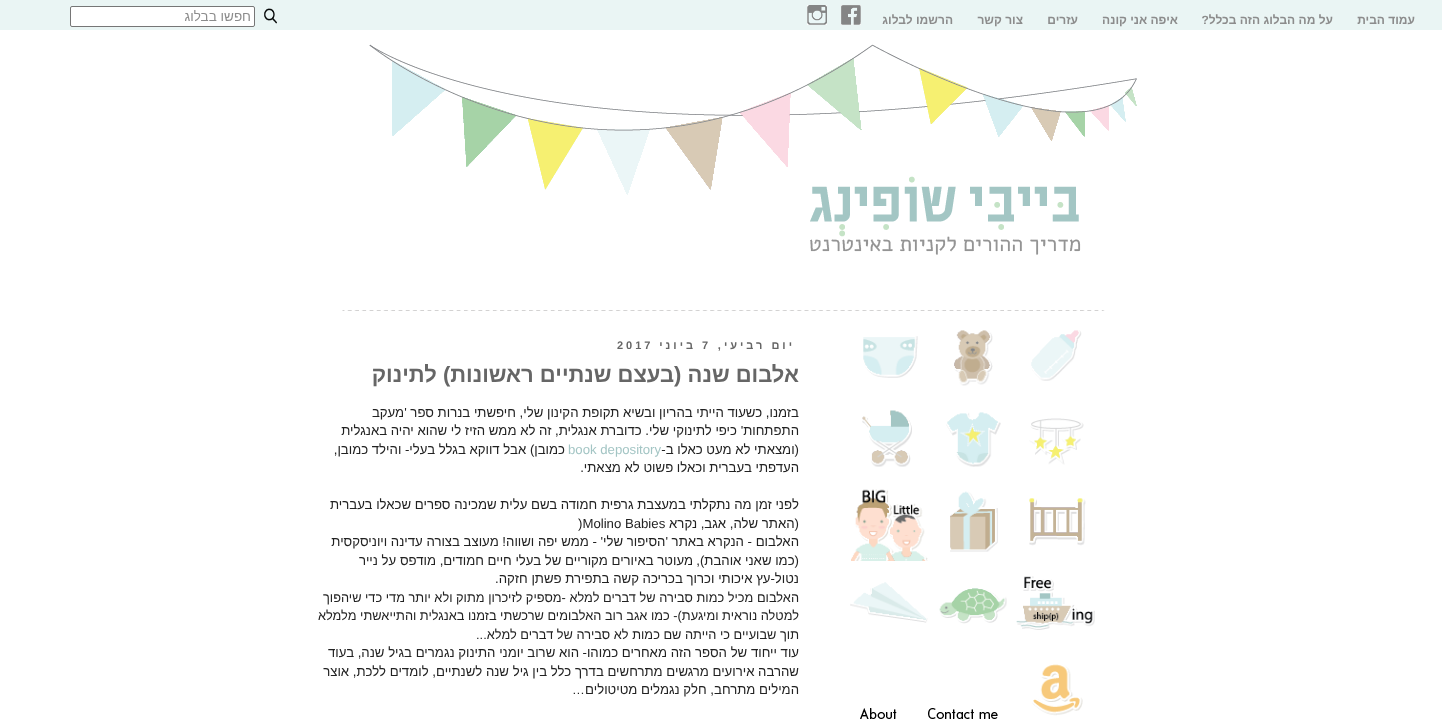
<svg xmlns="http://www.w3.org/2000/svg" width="1442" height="719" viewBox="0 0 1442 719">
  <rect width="100%" height="100%" fill="rgb(255,255,255)"/>
  <rect x="0" y="0" width="1442" height="30" fill="rgb(234,245,244)"/>
  <g font-family="Liberation Sans" font-size="12" font-weight="bold" direction="rtl" fill="rgb(140,140,140)">
    <text x="1415" y="24">עמוד הבית</text>
    <text x="1333" y="24">על מה הבלוג הזה בכלל?</text>
    <text x="1178" y="24">איפה אני קונה</text>
    <text x="1078" y="24">עזרים</text>
    <text x="1023" y="24">צור קשר</text>
    <text x="953" y="24">הרשמו לבלוג</text>
  </g>
  <image x="841" y="5" width="20" height="20" href="pic1.png"/>
  <image x="807" y="5" width="20" height="20" href="pic2.png"/>
  <image x="264" y="8" width="13" height="16" href="pic3.png"/>
  <rect x="70.5" y="6.5" width="184" height="20" rx="1.5" fill="rgb(255,255,255)" stroke="rgb(118,118,118)"/>
  <text x="251" y="21" font-family="Liberation Sans" font-size="13.5" direction="rtl" fill="rgb(140,140,140)">חפשו בבלוג</text>
  <image x="369" y="44" width="768" height="211" href="pic4.png"/>
  <image x="342" y="310" width="763" height="1" href="pic5.png"/>
  <image x="1031" y="330" width="51" height="51" href="pic6.png"/>
  <image x="954" y="330" width="39" height="56" href="pic7.png"/>
  <image x="863" y="336" width="55" height="42" href="pic8.png"/>
  <image x="1029" y="418" width="55" height="47" href="pic9.png"/>
  <image x="946" y="412" width="55" height="55" href="pic10.png"/>
  <image x="862" y="410" width="50" height="57" href="pic11.png"/>
  <image x="1029" y="498" width="57" height="48" href="pic12.png"/>
  <image x="950" y="491" width="48" height="61" href="pic13.png"/>
  <image x="851" y="489" width="77" height="72" href="pic14.png"/>
  <image x="1016" y="576" width="79" height="54" href="pic15.png"/>
  <image x="939" y="588" width="68" height="36" href="pic16.png"/>
  <image x="850" y="582" width="78" height="41" href="pic17.png"/>
  <image x="1032" y="664" width="51" height="52" href="pic18.png"/>
  <image x="928" y="708" width="70" height="11" href="pic19.png"/>
  <image x="860" y="708" width="37" height="11" href="pic20.png"/>
  <text x="795" y="349" font-family="Liberation Sans" font-size="11" font-weight="bold" letter-spacing="3" direction="rtl" fill="rgb(102,102,102)">יום רביעי,</text>
  <text x="702" y="349" font-family="Liberation Sans" font-size="11" font-weight="bold" letter-spacing="3" fill="rgb(102,102,102)">7</text>
  <text x="696" y="349" font-family="Liberation Sans" font-size="11" font-weight="bold" letter-spacing="3" direction="rtl" fill="rgb(102,102,102)">ביוני</text>
  <text x="617" y="349" font-family="Liberation Sans" font-size="11" font-weight="bold" letter-spacing="3" fill="rgb(102,102,102)">2017</text>
  <text x="799" y="382" font-family="Liberation Sans" font-size="22" font-weight="bold" direction="rtl" fill="rgb(102,102,102)">אלבום שנה (בעצם שנתיים ראשונות) לתינוק</text>
  <g font-family="Liberation Sans" font-size="13.2" direction="rtl" fill="rgb(34,34,34)">
    <text>
      <tspan x="799" y="417">בזמנו, כשעוד הייתי בהריון ובשיא תקופת הקינון שלי, חיפשתי בנרות ספר 'מעקב</tspan>
      <tspan x="799" y="435">התפתחות' כיפי לתינוקי שלי. כדוברת אנגלית, זה לא ממש הזיז לי שהוא יהיה באנגלית</tspan>
      <tspan x="799" y="454">(ומצאתי לא מעט כאלו ב-</tspan>
    </text>
  </g>
  <text x="568" y="454" font-family="Liberation Sans" font-size="13.2" fill="rgb(163,197,196)">book depository</text>
  <g font-family="Liberation Sans" font-size="13.2" direction="rtl" fill="rgb(34,34,34)">
    <text x="565" y="454">כמובן) אבל דווקא בגלל בעלי- והילד כמובן,</text>
    <text x="799" y="472">העדפתי בעברית וכאלו פשוט לא מצאתי.</text>
    <text x="799" y="509">ל</text>
    <text x="792" y="509">פני זמן מה נתקלתי במעצבת גרפית חמודה בשם עלית שמכינה ספרים שכאלו בעברית</text>
    <text x="799" y="528">(האתר שלה, אגב, נקרא</text>
  </g>
  <text x="578" y="528" font-family="Liberation Sans" font-size="13.2" fill="rgb(34,34,34)">)Molino Babies</text>
  <g font-family="Liberation Sans" font-size="13.2" direction="rtl" fill="rgb(34,34,34)">
    <text>
      <tspan x="799" y="546">האלבום - הנקרא באתר 'הסיפור שלי' - ממש יפה ושווה! מעוצב בצורה עדינה ויוניסקסית</tspan>
      <tspan x="799" y="565">(כמו שאני אוהבת),</tspan>
    </text>
    <text x="693" y="565">מעוטר באיורים מקוריים של בעלי חיים חמודים, מודפס על נייר</text>
    <text x="799" y="583">נטול-עץ איכותי ו</text>
    <text x="711" y="583">כרוך בכריכה קשה בתפירת פשתן חזקה.</text>
  </g>
  <g font-family="Liberation Sans" font-size="12.8" direction="rtl" fill="rgb(34,34,34)">
    <text>
      <tspan x="799" y="602">האלבום מכיל כמות סבירה של דברים למלא -מספיק לזיכרון מתוק ולא יותר מדי כדי שיהפוך</tspan>
      <tspan x="799" y="620">למטלה נוראית ומיגעת)- כמו אגב רוב האלבומים שרכשתי בזמנו באנגלית והתייאשתי מלמלא</tspan>
      <tspan x="799" y="639">תוך שבועיים כי הייתה שם כמות לא סבירה של דברים למלא...</tspan>
    </text>
  </g>
  <g font-family="Liberation Sans" font-size="13.2" direction="rtl" fill="rgb(34,34,34)">
    <text x="799" y="657">עוד ייחוד של הספר הזה מאחרים כמוהו-</text>
    <text x="579" y="657">הוא שרוב יומני התינוק נגמרים בגיל שנה, בעוד</text>
    <text>
      <tspan x="799" y="676">שהרבה אירועים מרגשים מתרחשים בדרך כלל בין גיל שנה לשנתיים, לומדים ללכת, אוצר</tspan>
      <tspan x="799" y="694">המילים מתרחב, חלק נגמלים מטיטולים</tspan>
    </text>
  </g>
  <text x="572" y="694" font-family="Liberation Sans" font-size="12.8" fill="rgb(34,34,34)">…</text>
</svg>
